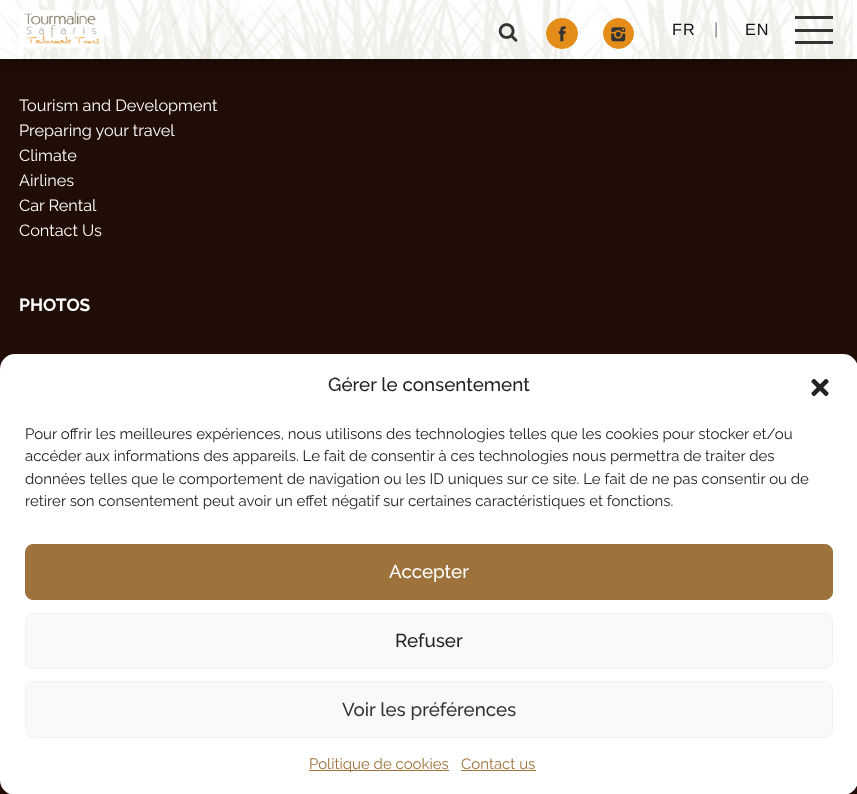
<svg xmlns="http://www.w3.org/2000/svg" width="857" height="794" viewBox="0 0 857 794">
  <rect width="100%" height="100%" fill="rgb(31,13,6)"/>
  <rect x="3" y="5" width="852" height="54" fill="rgba(0,0,0,0.41)" filter="blur(6px)"/>
  <rect x="853" y="0" width="4" height="59" fill="rgb(255,255,255)"/>
  <image x="0" y="0" width="853" height="59" href="pic1.png"/>
  <image x="19" y="10" width="85" height="38" href="pic2.png"/>
  <image x="498" y="23" width="20" height="19" href="pic3.png"/>
  <rect x="546.5" y="18.5" width="31" height="30" rx="15" fill="rgb(228,141,26)" stroke="rgb(228,141,26)"/>
  <image x="558" y="26" width="8" height="16" href="pic4.png"/>
  <circle cx="618.5" cy="33.5" r="15" fill="rgb(228,141,26)" stroke="rgb(228,141,26)"/>
  <image x="611" y="27" width="15" height="15" href="pic5.png"/>
  <text x="672" y="35" font-family="Liberation Sans" font-size="16.25" letter-spacing="1" fill="rgb(17,17,17)">FR</text>
  <text x="714" y="34" font-family="Liberation Sans" font-size="16.25" letter-spacing="1" fill="rgb(135,135,135)">|</text>
  <text x="745" y="35" font-family="Liberation Sans" font-size="16.25" letter-spacing="1" fill="rgb(17,17,17)">EN</text>
  <rect x="795" y="29" width="38" height="3" fill="rgb(51,51,51)"/>
  <rect x="795" y="16" width="38" height="3" fill="rgb(51,51,51)"/>
  <rect x="795" y="41" width="38" height="3" fill="rgb(51,51,51)"/>
  <g font-family="Raleway" font-size="16.25" fill="rgb(255,255,255)">
    <text>
      <tspan x="19" y="111">Tourism and Development</tspan>
      <tspan x="19" y="136">Preparing your travel</tspan>
      <tspan x="19" y="161">Climate</tspan>
      <tspan x="19" y="186">Airlines</tspan>
      <tspan x="19" y="211">Car Rental</tspan>
      <tspan x="19" y="236">Contact Us</tspan>
    </text>
  </g>
  <text x="19" y="311" font-family="Raleway" font-size="17.5" font-weight="bold" fill="rgb(255,255,255)">PHOTOS</text>
  <rect x="0" y="354" width="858" height="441" rx="15" fill="rgb(255,255,255)"/>
  <text x="328" y="391" font-family="Raleway" font-size="18.75" font-weight="500" fill="rgb(34,34,34)">Gérer le consentement</text>
  <image x="811" y="378" width="18" height="18" href="pic6.png"/>
  <g font-family="Raleway" font-size="15" fill="rgb(34,34,34)">
    <text>
      <tspan x="25" y="439">Pour offrir les meilleures expériences, nous utilisons des technologies telles que les cookies pour stocker et/ou</tspan>
      <tspan x="25" y="461">accéder aux informations des appareils. Le fait de consentir à ces technologies nous permettra de traiter des</tspan>
      <tspan x="25" y="484">données telles que le comportement de navigation ou les ID uniques sur ce site. Le fait de ne pas consentir ou de</tspan>
      <tspan x="25" y="506">retirer son consentement peut avoir un effet négatif sur certaines caractéristiques et fonctions.</tspan>
    </text>
  </g>
  <rect x="25.5" y="544.5" width="807" height="55" rx="7.5" fill="rgb(157,114,59)" stroke="rgb(157,114,59)"/>
  <text x="389" y="578" font-family="Raleway" font-size="18.75" font-weight="500" fill="rgb(255,255,255)">Accepter</text>
  <rect x="25.5" y="613.5" width="807" height="55" rx="7.5" fill="rgb(249,249,249)" stroke="rgb(242,242,242)"/>
  <text x="395" y="647" font-family="Raleway" font-size="18.75" font-weight="500" fill="rgb(34,34,34)">Refuser</text>
  <rect x="25.5" y="681.5" width="807" height="56" rx="7.5" fill="rgb(249,249,249)" stroke="rgb(242,242,242)"/>
  <text x="342" y="716" font-family="Raleway" font-size="18.75" font-weight="500" fill="rgb(51,51,51)">Voir les préférences</text>
  <rect x="309" y="770" width="140" height="1" fill="rgb(157,114,59)"/>
  <g font-family="Raleway" font-size="15" fill="rgb(157,114,59)">
    <text x="309" y="769">Politique de cookies</text>
    <text x="461" y="769">Contact us</text>
  </g>
  <rect x="461" y="770" width="75" height="1" fill="rgb(157,114,59)"/>
</svg>
